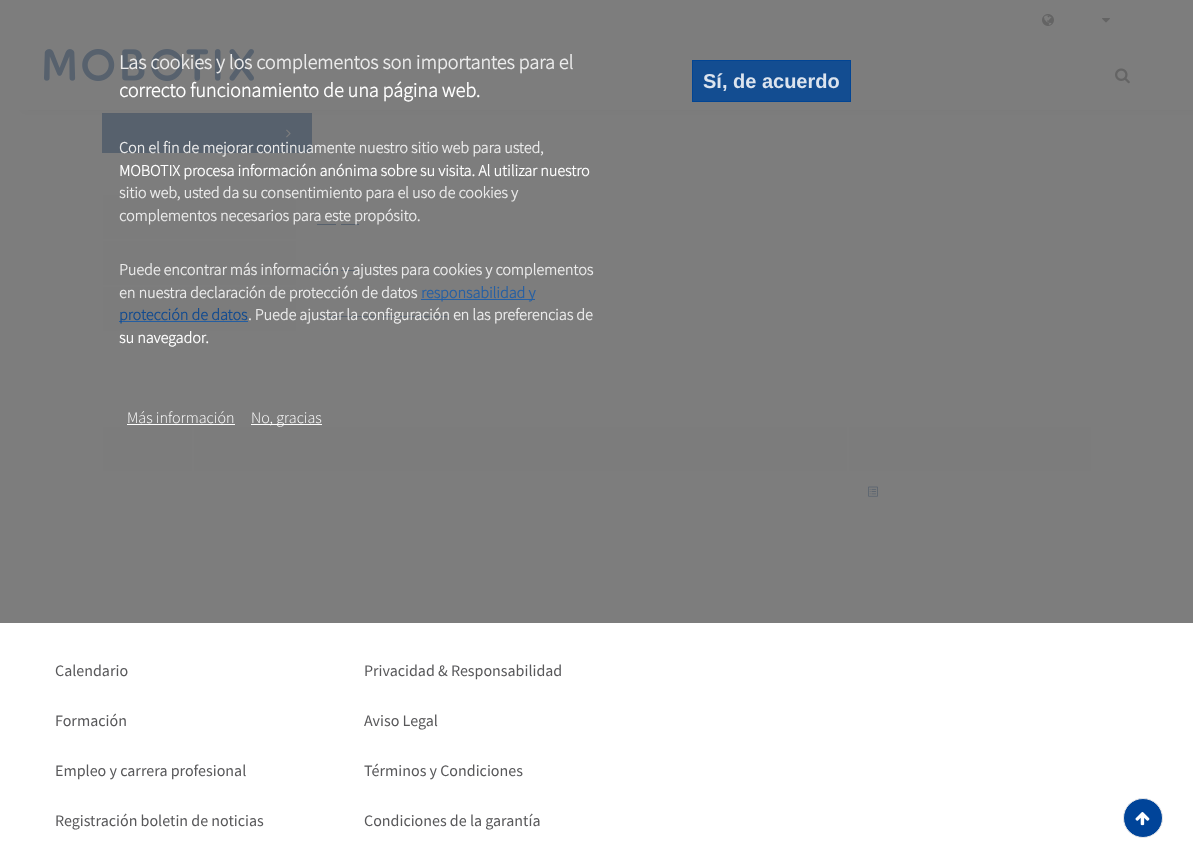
<svg xmlns="http://www.w3.org/2000/svg" width="1193" height="858" viewBox="0 0 1193 858">
  <rect width="100%" height="100%" fill="rgb(255,255,255)"/>
  <rect x="102" y="113" width="210" height="40" fill="rgb(0,68,148)"/>
  <rect x="20" y="3" width="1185" height="110" fill="rgba(0,0,0,0.07)" filter="blur(4px)"/>
  <rect x="16" y="0" width="1177" height="110" fill="rgb(255,255,255)"/>
  <image x="1042" y="14" width="12" height="12" href="pic1.png"/>
  <image x="1102" y="18" width="8" height="5" href="pic2.png"/>
  <image x="44" y="49" width="210" height="32" href="pic4.png"/>
  <image x="1115" y="68" width="15" height="16" href="pic5.png"/>
  <image x="286" y="129" width="5" height="9" href="pic6.png"/>
  <rect x="103" y="195" width="193" height="44" fill="rgb(243,243,243)"/>
  <rect x="317" y="224" width="19" height="1" fill="rgb(0,68,148)"/>
  <rect x="341" y="224" width="18" height="1" fill="rgb(0,68,148)"/>
  <rect x="103" y="241" width="193" height="44" fill="rgb(243,243,243)"/>
  <rect x="317" y="270" width="19" height="1" fill="rgb(0,68,148)"/>
  <rect x="341" y="270" width="18" height="1" fill="rgb(0,68,148)"/>
  <rect x="103" y="287" width="193" height="44" fill="rgb(243,243,243)"/>
  <rect x="317" y="316" width="60" height="1" fill="rgb(0,68,148)"/>
  <rect x="382" y="316" width="66" height="1" fill="rgb(0,68,148)"/>
  <rect x="103" y="427" width="89" height="44" fill="rgb(243,243,243)"/>
  <rect x="194" y="427" width="653" height="44" fill="rgb(243,243,243)"/>
  <rect x="849" y="427" width="242" height="44" fill="rgb(243,243,243)"/>
  <image x="868" y="486" width="10" height="11" href="pic7.png"/>
  <rect x="0" y="0" width="1193" height="623" fill="rgba(102,102,102,0.85)"/>
  <text x="119" y="69" font-family="Source Sans Pro" font-size="20" font-weight="bold" fill="rgb(235,235,235)">Las cookies y los complementos son importantes para el</text>
  <text x="119" y="97" font-family="Source Sans Pro" font-size="20" font-weight="bold" fill="rgb(255,255,255)">correcto funcionamiento de una página web.</text>
  <text x="119" y="153" font-family="Source Sans Pro" font-size="16" font-weight="bold" fill="rgb(235,235,235)">Con el fin de mejorar continuamente nuestro sitio web para usted,</text>
  <text x="119" y="176" font-family="Source Sans Pro" font-size="16" font-weight="bold" fill="rgb(255,255,255)">MOBOTIX procesa información anónima sobre su visita. Al utilizar nuestro</text>
  <g font-family="Source Sans Pro" font-size="16" font-weight="bold" fill="rgb(235,235,235)">
    <text>
      <tspan x="119" y="198">sitio web, usted da su consentimiento para el uso de cookies y</tspan>
      <tspan x="119" y="221">complementos necesarios para este propósito.</tspan>
    </text>
    <text>
      <tspan x="119" y="275">Puede encontrar más información y ajustes para cookies y complementos</tspan>
      <tspan x="119" y="298">en nuestra declaración de protección de datos</tspan>
    </text>
  </g>
  <rect x="421" y="299" width="114" height="1" fill="rgb(38,96,164)"/>
  <text x="421" y="298" font-family="Source Sans Pro" font-size="16" font-weight="bold" fill="rgb(38,96,164)">responsabilidad y</text>
  <rect x="119" y="321" width="129" height="1" fill="rgb(36,94,162)"/>
  <text x="119" y="320" font-family="Source Sans Pro" font-size="16" font-weight="bold" fill="rgb(18,75,144)">protección de datos</text>
  <text x="248" y="320" font-family="Source Sans Pro" font-size="16" font-weight="bold" fill="rgb(235,235,235)">. Puede ajustar la configuración en las preferencias de</text>
  <text x="119" y="343" font-family="Source Sans Pro" font-size="16" font-weight="bold" fill="rgb(255,255,255)">su navegador.</text>
  <text x="127" y="423" font-family="Source Sans Pro" font-size="16" font-weight="300" fill="rgb(255,255,255)">Más información</text>
  <rect x="127" y="424" width="108" height="1" fill="rgb(255,255,255)"/>
  <rect x="251" y="424" width="71" height="1" fill="rgb(255,255,255)"/>
  <text x="251" y="423" font-family="Source Sans Pro" font-size="16" font-weight="300" fill="rgb(255,255,255)">No, gracias</text>
  <rect x="692" y="60" width="159" height="42" fill="rgba(0,68,148,0.85)"/>
  <rect x="692.5" y="60.5" width="158" height="41" fill="none" stroke="rgba(0,68,148,0.85)"/>
  <text x="703" y="88" font-family="Liberation Sans" font-size="20" font-weight="bold" fill="rgb(220,228,238)">Sí, de acuerdo</text>
  <circle cx="1143" cy="818" r="19.5" fill="rgb(0,68,153)" stroke="rgb(233,233,234)"/>
  <image x="1135" y="812" width="15" height="14" href="pic3.png"/>
  <g font-family="Source Sans Pro" font-size="16" fill="rgb(88,88,90)">
    <text x="55" y="676">Calendario</text>
    <text x="55" y="726">Formación</text>
    <text x="55" y="776">Empleo y carrera profesional</text>
    <text x="55" y="826">Registración boletin de noticias</text>
    <text x="364" y="676">Privacidad &amp; Responsabilidad</text>
    <text x="364" y="726">Aviso Legal</text>
    <text x="364" y="776">Términos y Condiciones</text>
    <text x="364" y="826">Condiciones de la garantía</text>
  </g>
</svg>
